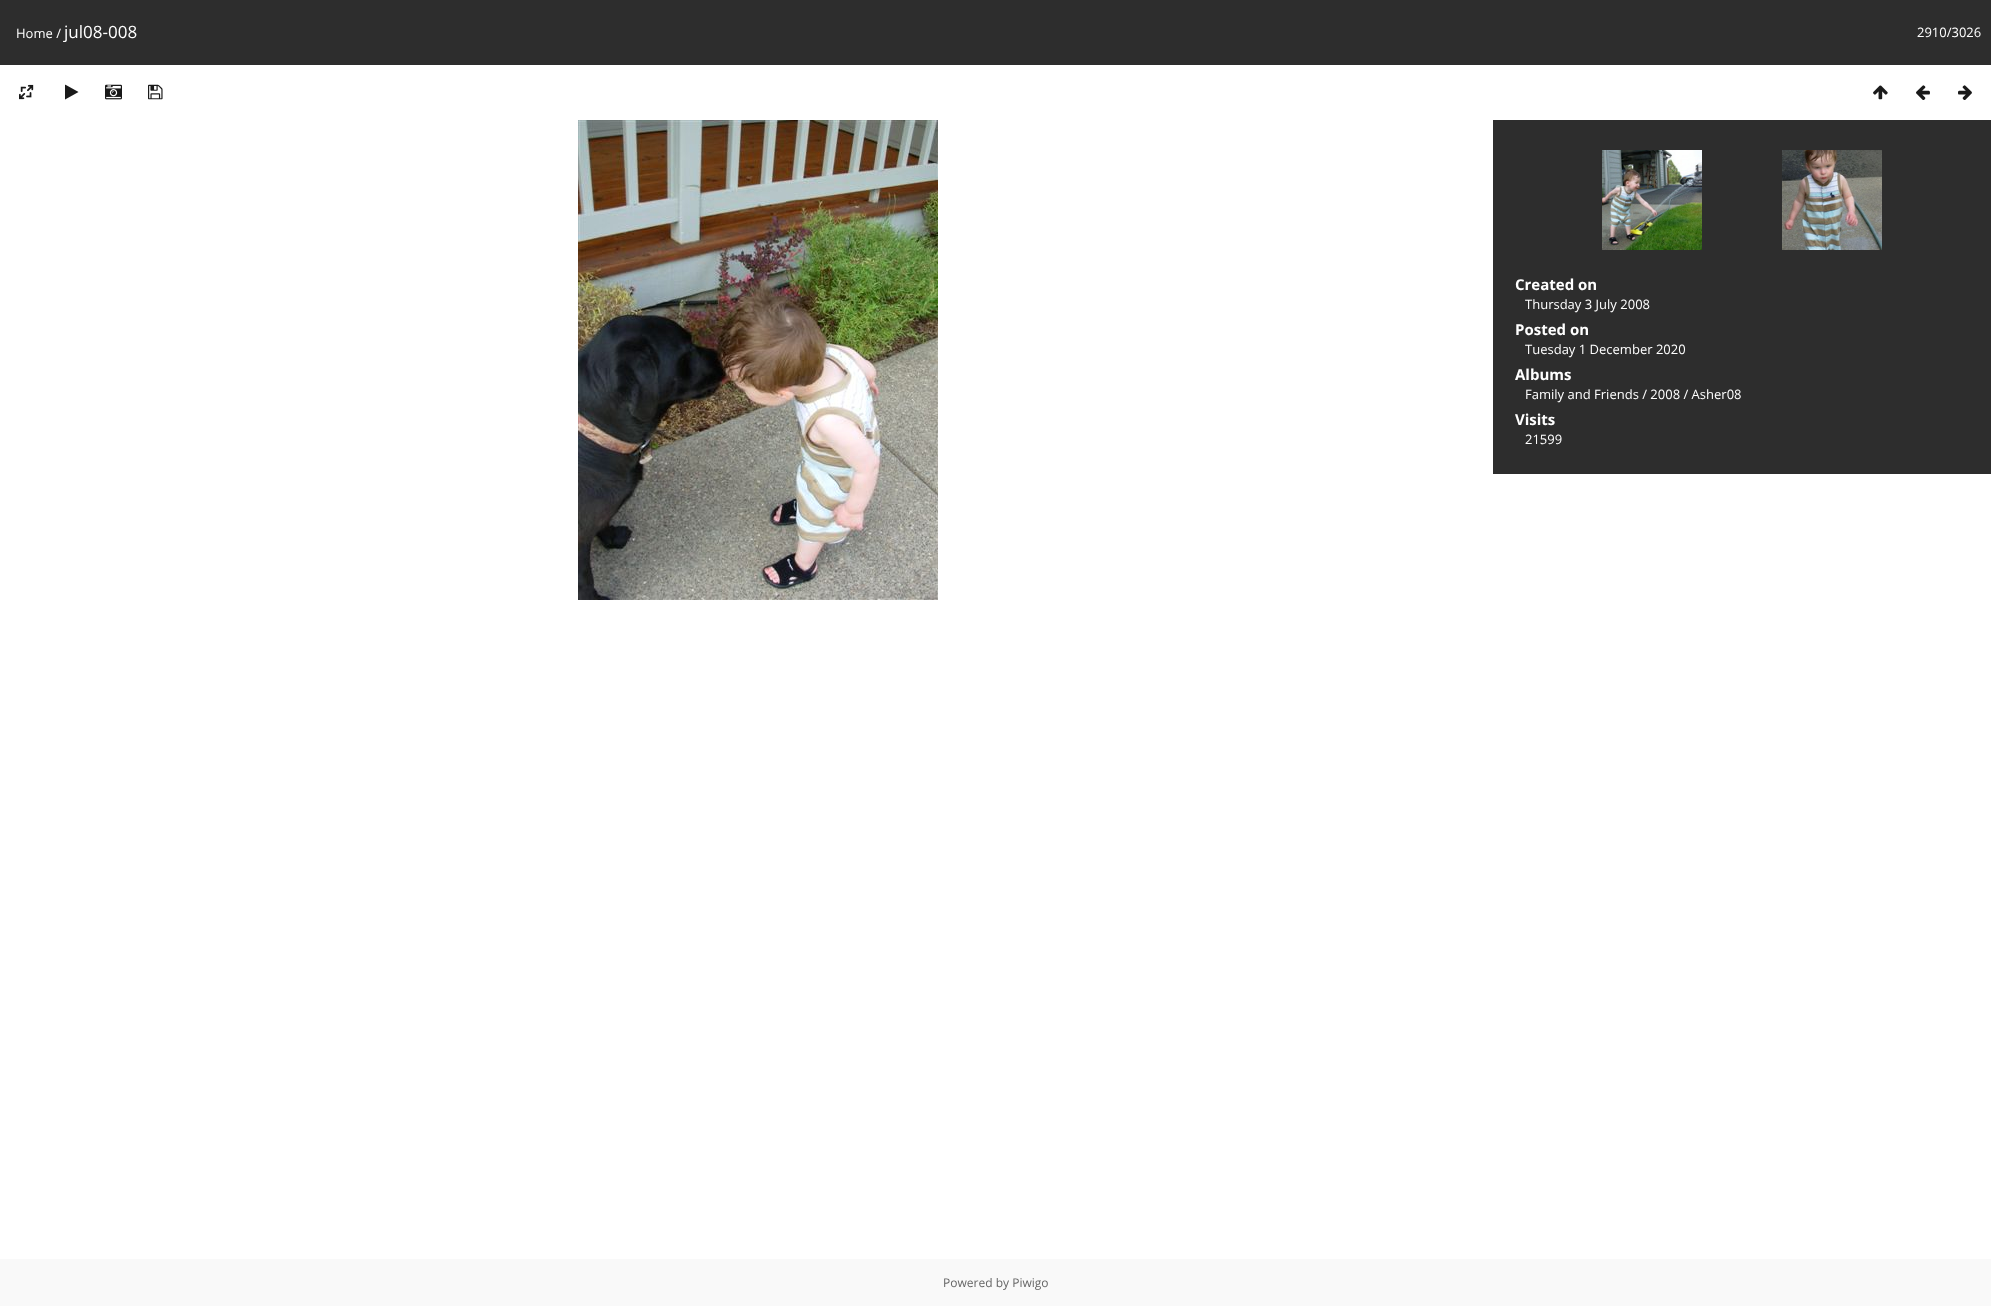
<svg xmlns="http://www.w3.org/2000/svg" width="1991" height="1306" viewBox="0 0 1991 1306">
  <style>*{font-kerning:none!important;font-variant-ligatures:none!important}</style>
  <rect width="100%" height="100%" fill="rgb(255,255,255)"/>
  <rect x="0" y="0" width="1991" height="65" fill="rgb(45,45,45)"/>
  <text x="16" y="38" font-family="Open Sans" font-size="13" fill="rgb(255,255,255)">Home /</text>
  <text x="64" y="38" font-family="Open Sans" font-size="17" fill="rgb(255,255,255)">jul08-008</text>
  <text x="1917" y="37" font-family="Open Sans" font-size="13" fill="rgb(255,255,255)">2910/3026</text>
  <image x="19" y="84" width="15" height="16" href="pic1.png"/>
  <text x="65" y="98" font-family="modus" font-size="17" fill="rgb(26,26,26)">▶</text>
  <image x="105" y="84" width="17" height="16" href="pic2.png"/>
  <g font-family="modus" font-size="17" fill="rgb(26,26,26)">
    <text x="148" y="98">💾</text>
    <text x="1873" y="98">↑</text>
    <text x="1916" y="98">←</text>
    <text x="1958" y="98">→</text>
  </g>
  <image x="578" y="120" width="360" height="480" href="pic3.png"/>
  <rect x="1493" y="120" width="498" height="354" fill="rgb(45,45,45)"/>
  <image x="1602" y="150" width="100" height="100" href="pic4.png"/>
  <image x="1782" y="150" width="100" height="100" href="pic5.png"/>
  <text x="1515" y="290" font-family="Open Sans" font-size="15" font-weight="bold" fill="rgb(255,255,255)">Created on</text>
  <text x="1525" y="309" font-family="Open Sans" font-size="13" fill="rgb(255,255,255)">Thursday 3 July 2008</text>
  <text x="1515" y="335" font-family="Open Sans" font-size="15" font-weight="bold" fill="rgb(255,255,255)">Posted on</text>
  <text x="1525" y="354" font-family="Open Sans" font-size="13" fill="rgb(255,255,255)">Tuesday 1 December 2020</text>
  <text x="1515" y="380" font-family="Open Sans" font-size="15" font-weight="bold" fill="rgb(255,255,255)">Albums</text>
  <text x="1525" y="399" font-family="Open Sans" font-size="13" fill="rgb(255,255,255)">Family and Friends / 2008 / Asher08</text>
  <text x="1515" y="425" font-family="Open Sans" font-size="15" font-weight="bold" fill="rgb(255,255,255)">Visits</text>
  <text x="1525" y="444" font-family="Open Sans" font-size="13" fill="rgb(255,255,255)">21599</text>
  <rect x="0" y="1259" width="1991" height="47" fill="rgb(249,249,249)"/>
  <text x="943" y="1287" font-family="Open Sans" font-size="12" fill="rgb(102,102,102)">Powered by Piwigo</text>
</svg>
